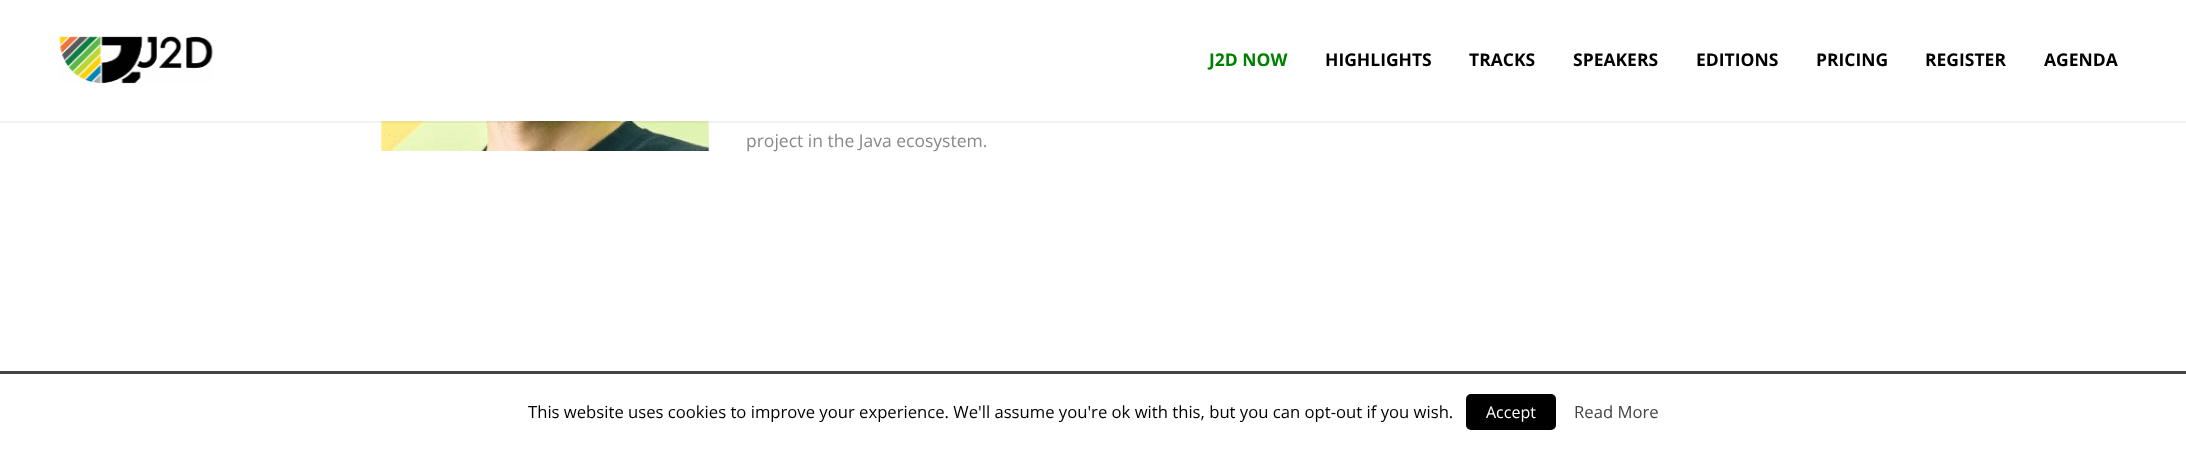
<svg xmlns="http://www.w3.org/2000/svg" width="2186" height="450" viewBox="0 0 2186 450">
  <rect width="100%" height="100%" fill="rgb(255,255,255)"/>
  <image x="381" y="121" width="328" height="30" href="pic2.png"/>
  <rect x="0" y="121" width="2186" height="2" fill="rgba(0,0,0,0.05)"/>
  <image x="59" y="36" width="154" height="48" href="pic1.png"/>
  <text x="1209" y="66" font-family="Open Sans" font-size="17.5" font-weight="bold" fill="rgb(0,128,0)">J2D NOW</text>
  <g font-family="Open Sans" font-size="17.5" font-weight="bold" fill="rgb(0,0,0)">
    <text x="1325" y="66">HIGHLIGHTS</text>
    <text x="1469" y="66">TRACKS</text>
    <text x="1573" y="66">SPEAKERS</text>
    <text x="1696" y="66">EDITIONS</text>
    <text x="1816" y="66">PRICING</text>
    <text x="1925" y="66">REGISTER</text>
    <text x="2044" y="66">AGENDA</text>
  </g>
  <text x="746" y="147" font-family="Open Sans" font-size="17.5" fill="rgb(137,137,137)">project in the Java ecosystem.</text>
  <rect x="0" y="371" width="2186" height="3" fill="rgb(68,68,68)"/>
  <text x="528" y="418" font-family="Open Sans" font-size="16.67" fill="rgb(0,0,0)">This website uses cookies to improve your experience. We'll assume you're ok with this, but you can opt-out if you wish.</text>
  <rect x="1466" y="394" width="90" height="36" rx="5" fill="rgb(0,0,0)"/>
  <text x="1486" y="418" font-family="Open Sans" font-size="16" fill="rgb(255,255,255)">Accept</text>
  <text x="1574" y="418" font-family="Open Sans" font-size="16.67" fill="rgb(68,68,68)">Read More</text>
</svg>
